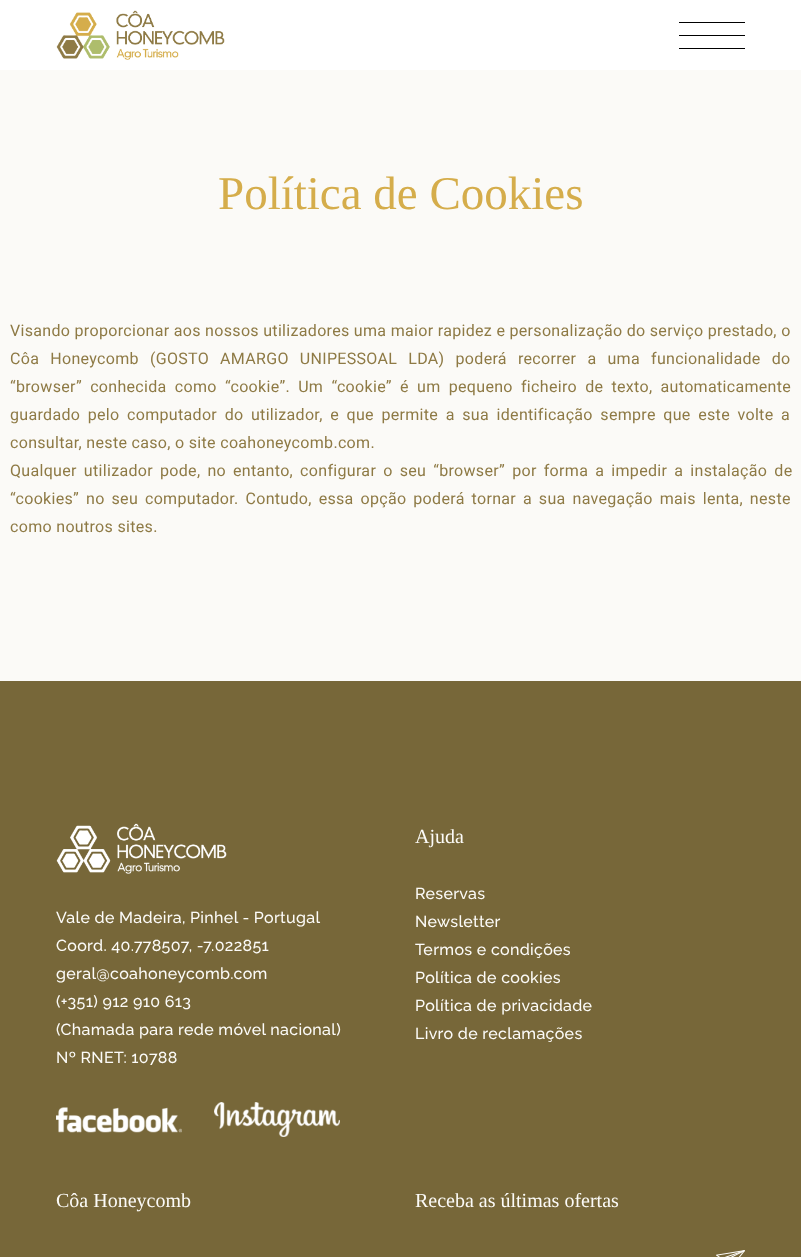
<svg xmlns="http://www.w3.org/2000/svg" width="801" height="1257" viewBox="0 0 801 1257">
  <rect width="100%" height="100%" fill="rgb(255,255,255)"/>
  <image x="56" y="10" width="169" height="50" href="pic1.png"/>
  <rect x="679" y="22" width="66" height="1" fill="rgb(0,0,0)"/>
  <rect x="679" y="35" width="66" height="1" fill="rgb(0,0,0)"/>
  <rect x="679" y="48" width="66" height="1" fill="rgb(0,0,0)"/>
  <rect x="0" y="70" width="801" height="611" fill="rgb(251,250,247)"/>
  <text x="218" y="209" font-family="Liberation Serif" font-size="47" fill="rgb(213,173,75)">Política de Cookies</text>
  <g font-family="Roboto" font-size="16" letter-spacing="0.32" fill="rgb(142,122,69)">
    <text>
      <tspan x="10" y="336">Visando proporcionar aos nossos utilizadores uma maior rapidez e personalização do serviço prestado, o</tspan>
      <tspan x="10" y="364" word-spacing="6.75">Côa Honeycomb (GOSTO AMARGO UNIPESSOAL LDA) poderá recorrer a uma funcionalidade do</tspan>
      <tspan x="10" y="392" word-spacing="3.9">“browser” conhecida como “cookie”. Um “cookie” é um pequeno ficheiro de texto, automaticamente</tspan>
      <tspan x="10" y="420" word-spacing="3.25">guardado pelo computador do utilizador, e que permite a sua identificação sempre que este volte a</tspan>
      <tspan x="10" y="448">consultar, neste caso, o site coahoneycomb.com.</tspan>
      <tspan x="10" y="476" word-spacing="2.75">Qualquer utilizador pode, no entanto, configurar o seu “browser” por forma a impedir a instalação de</tspan>
      <tspan x="10" y="504" word-spacing="2.6">“cookies” no seu computador. Contudo, essa opção poderá tornar a sua navegação mais lenta, neste</tspan>
      <tspan x="10" y="532">como noutros sites.</tspan>
    </text>
  </g>
  <rect x="0" y="681" width="801" height="576" fill="rgb(119,103,57)"/>
  <image x="56" y="823" width="171" height="51" href="pic2.png"/>
  <g font-family="Raleway" font-size="16" font-weight="500" letter-spacing="0.32" fill="rgb(252,251,248)">
    <text>
      <tspan x="56" y="923">Vale de Madeira, Pinhel - Portugal</tspan>
      <tspan x="56" y="951">Coord. 40.778507, -7.022851</tspan>
      <tspan x="56" y="979">geral@coahoneycomb.com</tspan>
      <tspan x="56" y="1007">(+351) 912 910 613</tspan>
      <tspan x="56" y="1035">(Chamada para rede móvel nacional)</tspan>
      <tspan x="56" y="1063">Nº RNET: 10788</tspan>
    </text>
  </g>
  <image x="56" y="1107" width="126" height="26" href="pic3.png"/>
  <image x="214" y="1102" width="126" height="35" href="pic4.png"/>
  <text x="415" y="843" font-family="Liberation Serif" font-size="20" fill="rgb(252,251,248)">Ajuda</text>
  <g font-family="Raleway" font-size="16" font-weight="500" letter-spacing="0.32" fill="rgb(252,251,248)">
    <text>
      <tspan x="415" y="899">Reservas</tspan>
      <tspan x="415" y="927">Newsletter</tspan>
      <tspan x="415" y="955">Termos e condições</tspan>
      <tspan x="415" y="983">Política de cookies</tspan>
      <tspan x="415" y="1011">Política de privacidade</tspan>
      <tspan x="415" y="1039">Livro de reclamações</tspan>
    </text>
  </g>
  <g font-family="Liberation Serif" font-size="20" fill="rgb(252,251,248)">
    <text x="56" y="1207">Côa Honeycomb</text>
    <text x="415" y="1207">Receba as últimas ofertas</text>
  </g>
  <image x="716" y="1250" width="29" height="7" href="pic5.png"/>
</svg>
